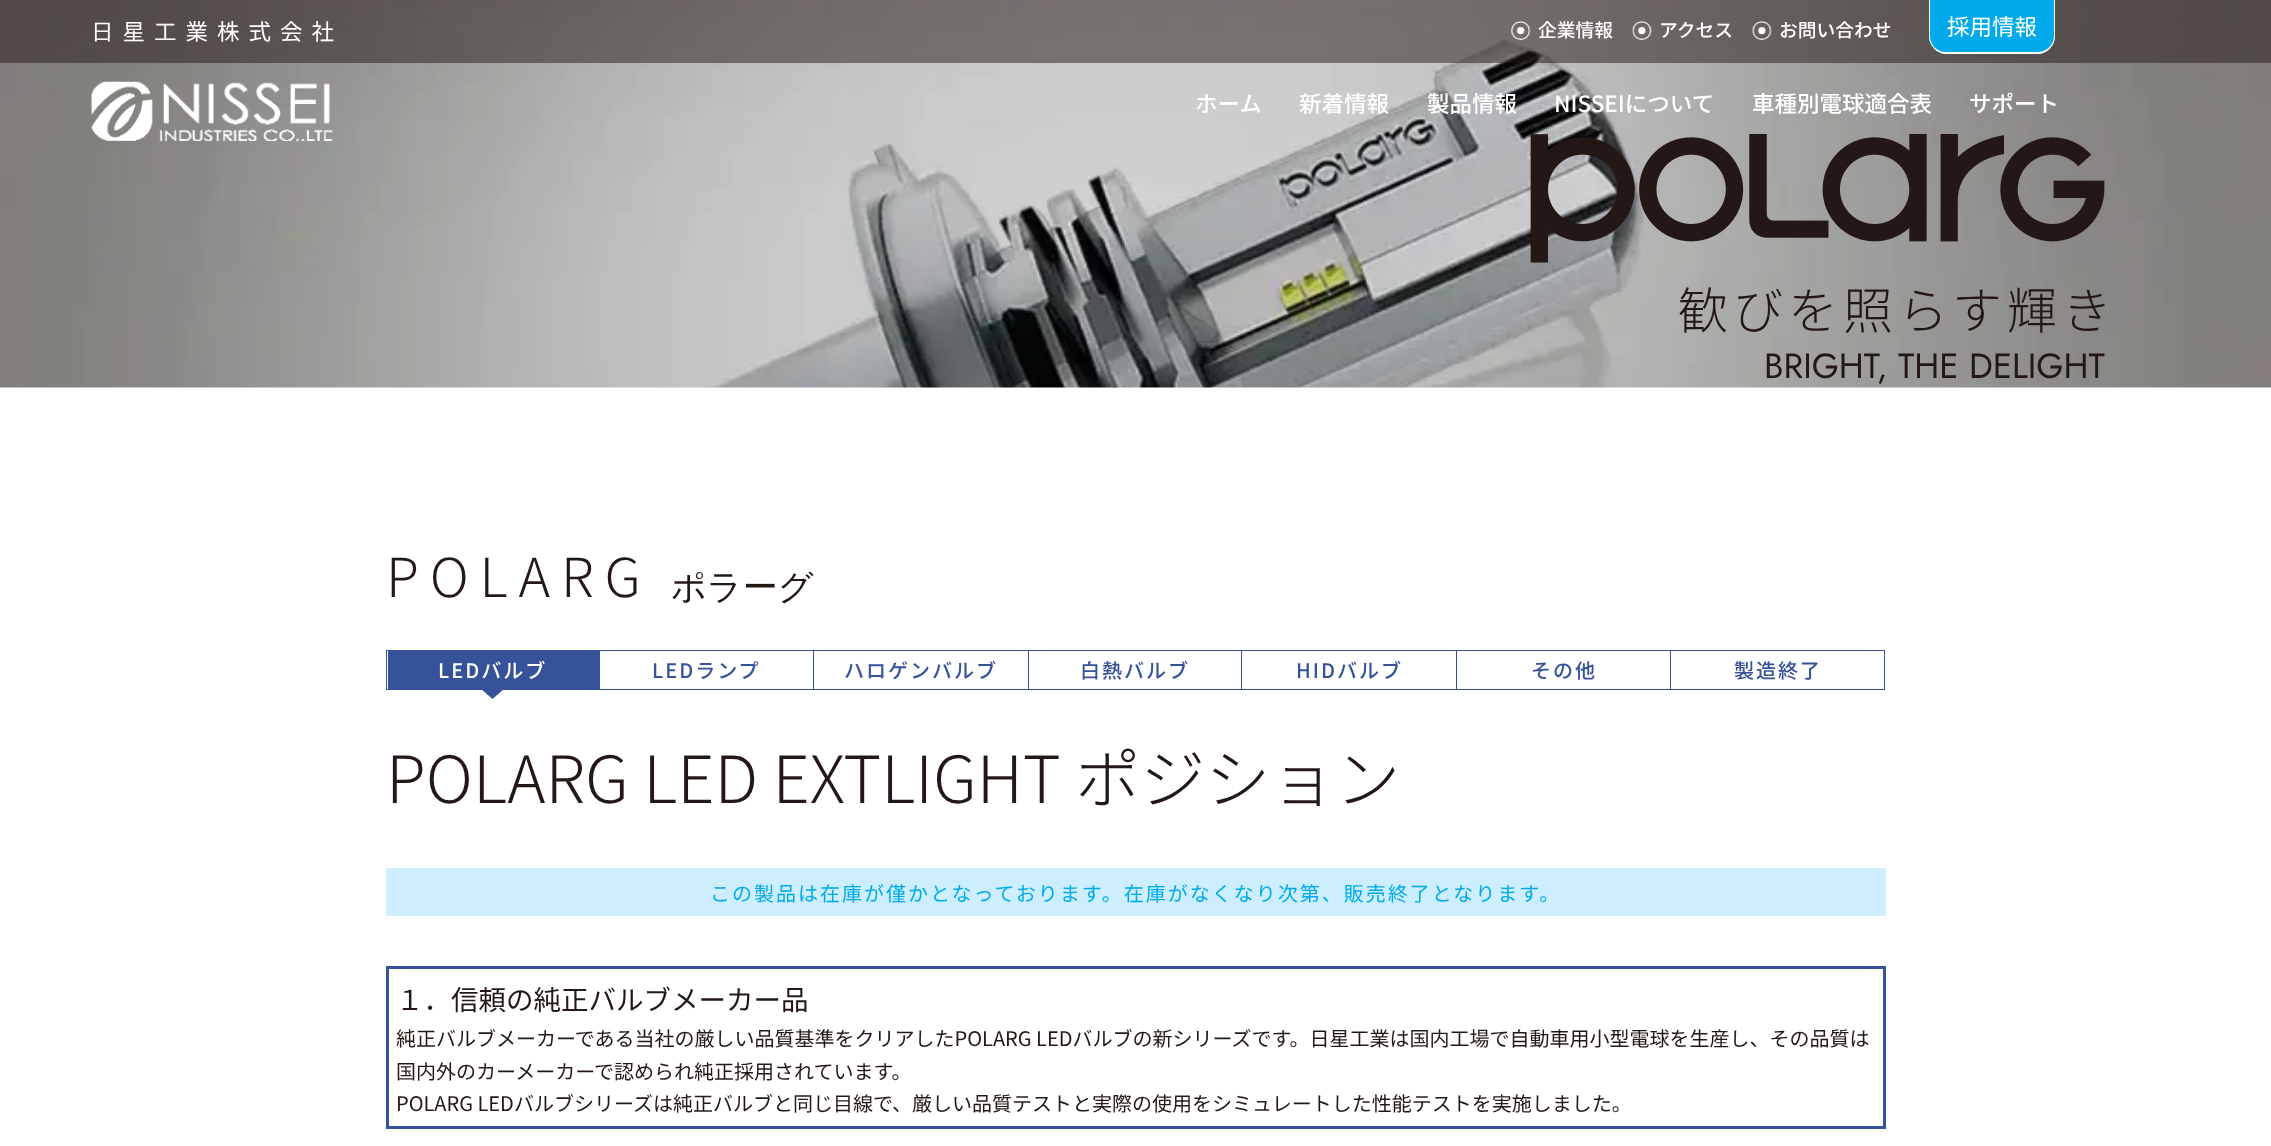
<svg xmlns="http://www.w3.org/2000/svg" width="2271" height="1146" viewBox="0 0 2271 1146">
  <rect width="100%" height="100%" fill="rgb(255,255,255)"/>
  <image x="0" y="0" width="2271" height="388" href="pic5.png"/>
  <rect x="0" y="0" width="2271" height="63" fill="rgba(35,24,21,0.5)"/>
  <text x="91" y="40" font-family="Noto Sans JP" font-size="22.5" letter-spacing="9" fill="rgb(255,255,255)">日星工業株式会社</text>
  <image x="1511" y="21" width="20" height="19" href="pic1.png"/>
  <text x="1538" y="37" font-family="Noto Sans JP" font-size="18.75" font-weight="500" fill="rgb(255,255,255)">企業情報</text>
  <image x="1632" y="21" width="20" height="19" href="pic2.png"/>
  <text x="1659" y="37" font-family="Noto Sans JP" font-size="18.75" font-weight="500" fill="rgb(255,255,255)">アクセス</text>
  <image x="1752" y="21" width="20" height="19" href="pic3.png"/>
  <text x="1779" y="37" font-family="Noto Sans JP" font-size="18.75" font-weight="500" fill="rgb(255,255,255)">お問い合わせ</text>
  <path d="M1929 0H2055V36C2055 46 2047 54 2037 54H1947C1937 54 1929 46 1929 36Z" fill="rgb(0,170,234)"/>
  <path d="M1929 0H2055V36C2055 46 2047 54 2038 54H1946C1937 54 1929 46 1929 36ZM1930 0H2054V36C2054 45 2046 52 2038 52H1946C1937 52 1930 45 1930 36Z" fill="rgb(255,255,255)" fill-rule="evenodd"/>
  <text x="1947" y="35" font-family="Noto Sans JP" font-size="22.5" fill="rgb(255,255,255)">採用情報</text>
  <image x="91" y="81" width="242" height="60" href="pic4.png"/>
  <g font-family="Noto Sans JP" font-size="22.5" font-weight="500" fill="rgb(255,255,255)">
    <text x="1195" y="112">ホーム</text>
    <text x="1299" y="112">新着情報</text>
    <text x="1427" y="112">製品情報</text>
    <text x="1554" y="112">NISSEIについて</text>
    <text x="1752" y="112">車種別電球適合表</text>
    <text x="1969" y="112">サポート</text>
  </g>
  <image x="1530" y="134" width="575" height="129" href="pic6.png"/>
  <text x="1678" y="329" font-family="Noto Sans JP" font-size="50" font-weight="300" letter-spacing="5" fill="rgb(35,24,21)">歓びを照らす輝き</text>
  <text x="1764" y="378" font-family="Jost" font-size="35" fill="rgb(35,24,21)">BRIGHT, THE DELIGHT</text>
  <text x="386" y="597" font-family="Noto Sans JP" font-size="53.75" font-weight="300" letter-spacing="10.75" fill="rgb(35,24,21)">POLARG</text>
  <text x="671" y="599" font-family="WenQuanYi Zen Hei" font-size="35" font-weight="500" fill="rgb(35,24,21)">ポラーグ</text>
  <rect x="386.5" y="650.5" width="213" height="39" fill="none" stroke="rgb(54,82,153)"/>
  <rect x="388" y="651" width="211" height="38" fill="rgb(54,82,153)"/>
  <text x="438" y="678" font-family="Noto Sans JP" font-size="20" font-weight="500" letter-spacing="2" fill="rgb(255,255,255)">LEDバルブ</text>
  <path d="M481 689H504L492.5 699Z" fill="rgb(54,82,153)"/>
  <rect x="600" y="650" width="1285" height="1" fill="rgb(54,82,153)"/>
  <rect x="813" y="650" width="1" height="40" fill="rgb(54,82,153)"/>
  <rect x="600" y="689" width="214" height="1" fill="rgb(54,82,153)"/>
  <text x="652" y="678" font-family="Noto Sans JP" font-size="20" font-weight="500" letter-spacing="2" fill="rgb(54,82,153)">LEDランプ</text>
  <rect x="1028" y="650" width="1" height="40" fill="rgb(54,82,153)"/>
  <rect x="814" y="689" width="215" height="1" fill="rgb(54,82,153)"/>
  <text x="844" y="678" font-family="Noto Sans JP" font-size="20" font-weight="500" letter-spacing="2" fill="rgb(54,82,153)">ハロゲンバルブ</text>
  <rect x="1241" y="650" width="1" height="40" fill="rgb(54,82,153)"/>
  <rect x="1029" y="689" width="214" height="1" fill="rgb(54,82,153)"/>
  <text x="1080" y="678" font-family="Noto Sans JP" font-size="20" font-weight="500" letter-spacing="2" fill="rgb(54,82,153)">白熱バルブ</text>
  <rect x="1456" y="650" width="1" height="40" fill="rgb(54,82,153)"/>
  <rect x="1243" y="689" width="215" height="1" fill="rgb(54,82,153)"/>
  <text x="1296" y="678" font-family="Noto Sans JP" font-size="20" font-weight="500" letter-spacing="2" fill="rgb(54,82,153)">HIDバルブ</text>
  <rect x="1670" y="650" width="1" height="40" fill="rgb(54,82,153)"/>
  <rect x="1458" y="689" width="213" height="1" fill="rgb(54,82,153)"/>
  <text x="1531" y="678" font-family="Noto Sans JP" font-size="20" font-weight="500" letter-spacing="2" fill="rgb(54,82,153)">その他</text>
  <rect x="1884" y="650" width="1" height="40" fill="rgb(54,82,153)"/>
  <rect x="1671" y="689" width="214" height="1" fill="rgb(54,82,153)"/>
  <text x="1734" y="678" font-family="Noto Sans JP" font-size="20" font-weight="500" letter-spacing="2" fill="rgb(54,82,153)">製造終了</text>
  <text x="386" y="803" font-family="Noto Sans JP" font-size="65" font-weight="300" fill="rgb(35,24,21)">POLARG LED EXTLIGHT ポジション</text>
  <rect x="386" y="868" width="1500" height="48" fill="rgb(204,238,255)"/>
  <text x="710" y="901" font-family="Noto Sans JP" font-size="20" letter-spacing="2" fill="rgb(0,170,234)">この製品は在庫が僅かとなっております。在庫がなくなり次第、販売終了となります。</text>
  <rect x="387.5" y="967.5" width="1497" height="160" fill="none" stroke="rgb(54,82,153)" stroke-width="3"/>
  <text x="396" y="1010" font-family="Noto Sans JP" font-size="27.5" fill="rgb(35,24,21)">１．信頼の純正バルブメーカー品</text>
  <g font-family="Noto Sans JP" font-size="20" fill="rgb(35,24,21)">
    <text>
      <tspan x="396" y="1046">純正バルブメーカーである当社の厳しい品質基準をクリアしたPOLARG LEDバルブの新シリーズです。日星工業は国内工場で自動車用小型電球を生産し、その品質は</tspan>
      <tspan x="396" y="1079">国内外のカーメーカーで認められ純正採用されています。</tspan>
      <tspan x="396" y="1111">POLARG LEDバルブシリーズは純正バルブと同じ目線で、厳しい品質テストと実際の使用をシミュレートした性能テストを実施しました。</tspan>
    </text>
  </g>
</svg>
